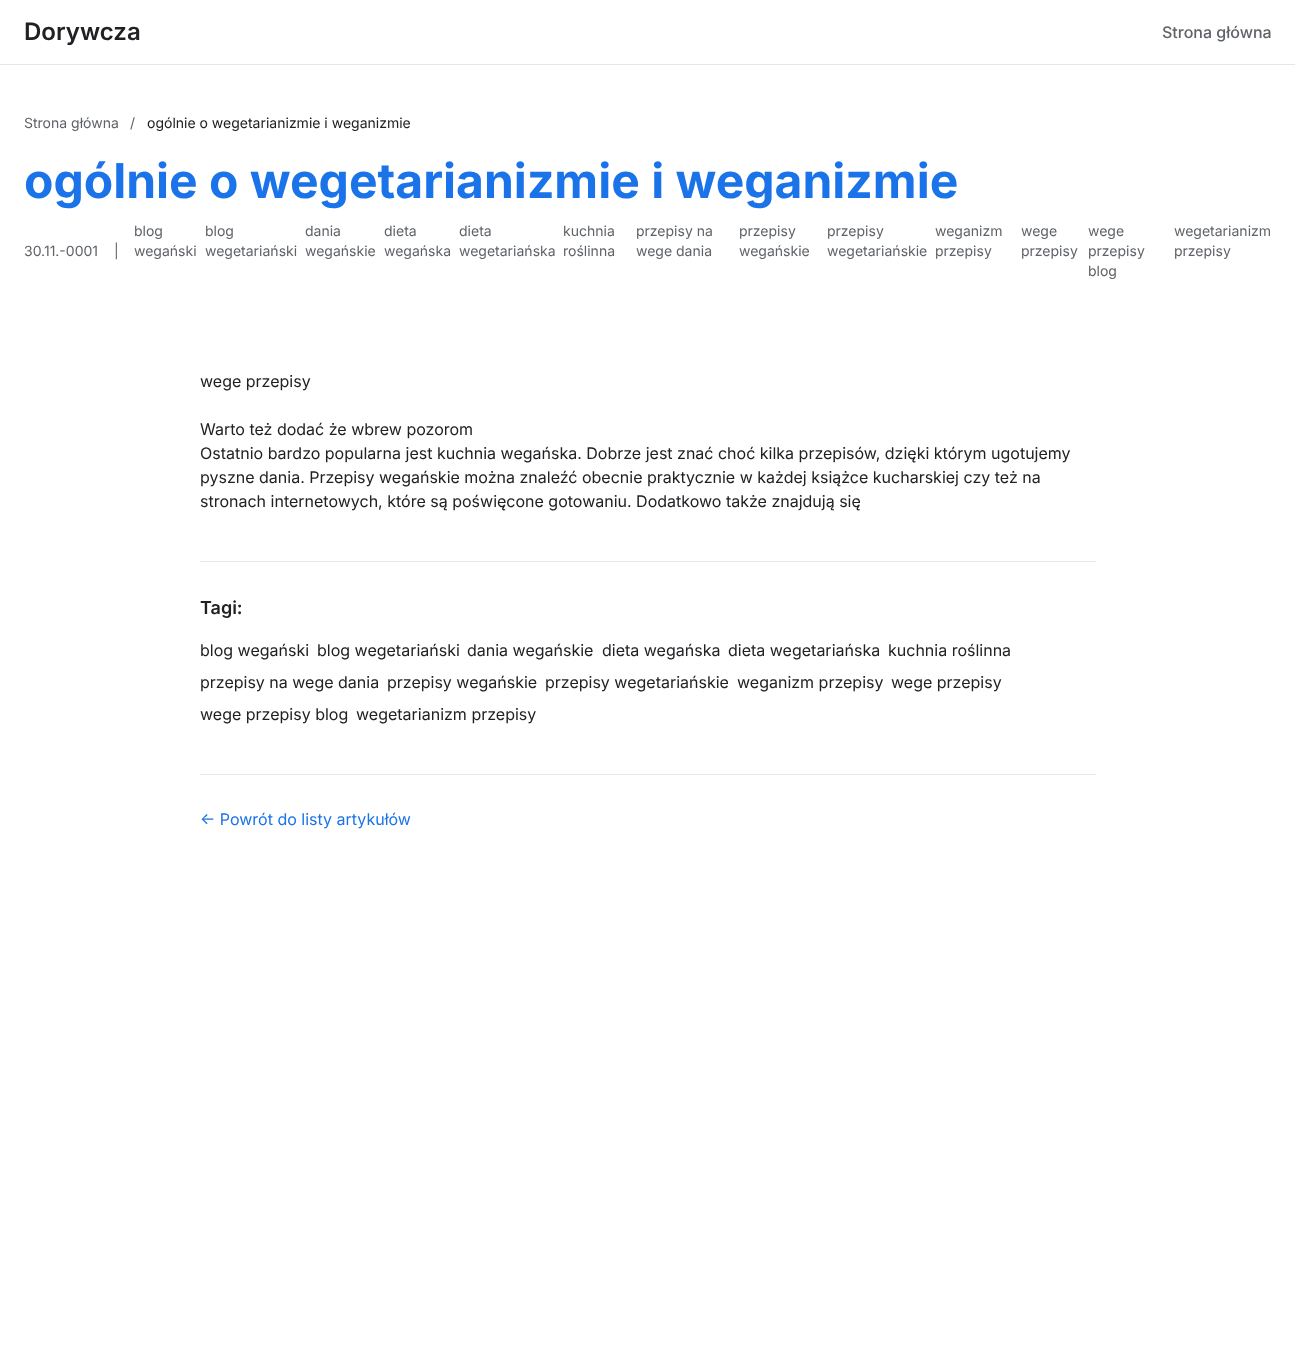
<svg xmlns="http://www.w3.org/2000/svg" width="1295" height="1364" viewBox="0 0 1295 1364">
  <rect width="100%" height="100%" fill="rgb(255,255,255)"/>
  <rect x="0" y="64" width="1295" height="1" fill="rgb(229,231,235)"/>
  <text x="24" y="40" font-family="Inter" font-size="24" font-weight="600" fill="rgb(32,33,36)">Dorywcza</text>
  <text x="1162" y="38" font-family="Inter" font-size="16" font-weight="500" fill="rgb(95,99,104)">Strona główna</text>
  <g font-family="Inter" font-size="14" fill="rgb(95,99,104)">
    <text x="24" y="128">Strona główna</text>
    <text x="130" y="128">/</text>
  </g>
  <text x="147" y="128" font-family="Inter" font-size="14" fill="rgb(32,33,36)">ogólnie o wegetarianizmie i weganizmie</text>
  <text x="24" y="198" font-family="Inter" font-size="48" font-weight="bold" fill="rgb(26,115,232)">ogólnie o wegetarianizmie i weganizmie</text>
  <g font-family="Inter" font-size="14" fill="rgb(95,99,104)">
    <text x="24" y="256">30.11.-0001</text>
    <text x="114" y="256">|</text>
    <text>
      <tspan x="134" y="236">blog</tspan>
      <tspan x="134" y="256">wegański</tspan>
    </text>
    <text>
      <tspan x="205" y="236">blog</tspan>
      <tspan x="205" y="256">wegetariański</tspan>
    </text>
    <text>
      <tspan x="305" y="236">dania</tspan>
      <tspan x="305" y="256">wegańskie</tspan>
    </text>
    <text>
      <tspan x="384" y="236">dieta</tspan>
      <tspan x="384" y="256">wegańska</tspan>
    </text>
    <text>
      <tspan x="459" y="236">dieta</tspan>
      <tspan x="459" y="256">wegetariańska</tspan>
    </text>
    <text>
      <tspan x="563" y="236">kuchnia</tspan>
      <tspan x="563" y="256">roślinna</tspan>
    </text>
    <text>
      <tspan x="636" y="236">przepisy na</tspan>
      <tspan x="636" y="256">wege dania</tspan>
    </text>
    <text>
      <tspan x="739" y="236">przepisy</tspan>
      <tspan x="739" y="256">wegańskie</tspan>
    </text>
    <text>
      <tspan x="827" y="236">przepisy</tspan>
      <tspan x="827" y="256">wegetariańskie</tspan>
    </text>
    <text>
      <tspan x="935" y="236">weganizm</tspan>
      <tspan x="935" y="256">przepisy</tspan>
    </text>
    <text>
      <tspan x="1021" y="236">wege</tspan>
      <tspan x="1021" y="256">przepisy</tspan>
    </text>
    <text>
      <tspan x="1088" y="236">wege</tspan>
      <tspan x="1088" y="256">przepisy</tspan>
      <tspan x="1088" y="276">blog</tspan>
    </text>
    <text>
      <tspan x="1174" y="236">wegetarianizm</tspan>
      <tspan x="1174" y="256">przepisy</tspan>
    </text>
  </g>
  <g font-family="Inter" font-size="16" fill="rgb(32,33,36)">
    <text x="200" y="387">wege przepisy</text>
    <text>
      <tspan x="200" y="435">Warto też dodać że wbrew pozorom</tspan>
      <tspan x="200" y="459">Ostatnio bardzo popularna jest kuchnia wegańska. Dobrze jest znać choć kilka przepisów, dzięki którym ugotujemy</tspan>
      <tspan x="200" y="483">pyszne dania. Przepisy wegańskie można znaleźć obecnie praktycznie w każdej książce kucharskiej czy też na</tspan>
      <tspan x="200" y="507">stronach internetowych, które są poświęcone gotowaniu. Dodatkowo także znajdują się</tspan>
    </text>
  </g>
  <rect x="200" y="561" width="896" height="1" fill="rgb(229,231,235)"/>
  <text x="200" y="614" font-family="Inter" font-size="18" font-weight="600" fill="rgb(32,33,36)">Tagi:</text>
  <g font-family="Inter" font-size="16" fill="rgb(32,33,36)">
    <text x="200" y="656">blog wegański</text>
    <text x="317" y="656">blog wegetariański</text>
    <text x="467" y="656">dania wegańskie</text>
    <text x="602" y="656">dieta wegańska</text>
    <text x="728" y="656">dieta wegetariańska</text>
    <text x="888" y="656">kuchnia roślinna</text>
    <text x="200" y="688">przepisy na wege dania</text>
    <text x="387" y="688">przepisy wegańskie</text>
    <text x="545" y="688">przepisy wegetariańskie</text>
    <text x="737" y="688">weganizm przepisy</text>
    <text x="891" y="688">wege przepisy</text>
    <text x="200" y="720">wege przepisy blog</text>
    <text x="356" y="720">wegetarianizm przepisy</text>
  </g>
  <rect x="200" y="774" width="896" height="1" fill="rgb(229,231,235)"/>
  <text x="200" y="825" font-family="Inter" font-size="16" fill="rgb(26,115,232)">← Powrót do listy artykułów</text>
</svg>
